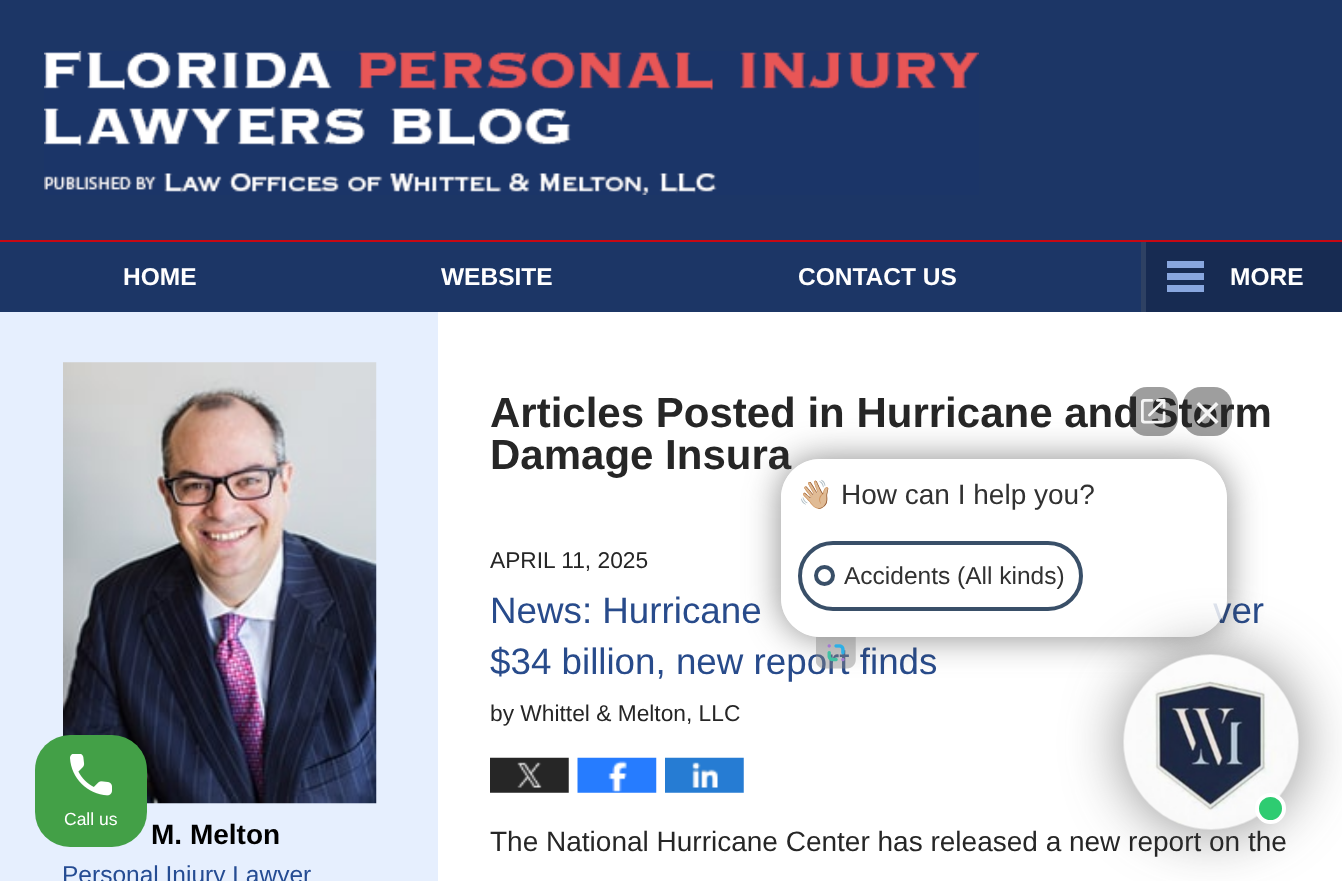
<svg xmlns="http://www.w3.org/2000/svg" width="1342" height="881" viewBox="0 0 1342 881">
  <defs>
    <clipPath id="clip1"><path d="M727 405H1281V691H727ZM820 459H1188C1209.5 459 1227 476.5 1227 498V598C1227 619.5 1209.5 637 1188 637H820C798.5 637 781 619.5 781 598V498C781 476.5 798.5 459 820 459Z" clip-rule="evenodd"/></clipPath>
  </defs>
  <rect width="100%" height="100%" fill="rgb(255,255,255)"/>
  <rect x="0" y="0" width="1342" height="312" fill="rgb(28,54,102)"/>
  <rect x="0" y="240" width="1342" height="2" fill="rgb(198,8,19)"/>
  <image x="44" y="51" width="935" height="144" href="pic1.png"/>
  <g font-family="Liberation Sans" font-size="24.5" font-weight="bold" fill="rgb(255,255,255)">
    <text x="123" y="285">HOME</text>
    <text x="441" y="285">WEBSITE</text>
    <text x="798" y="285">CONTACT US</text>
  </g>
  <rect x="1146" y="242" width="196" height="70" fill="rgb(23,43,82)"/>
  <rect x="1141" y="242" width="5" height="70" fill="rgb(46,65,99)"/>
  <rect x="1167" y="261" width="37" height="7" fill="rgb(137,167,223)"/>
  <rect x="1167" y="273" width="37" height="7" fill="rgb(137,167,223)"/>
  <text x="1230" y="285" font-family="Liberation Sans" font-size="24.5" font-weight="bold" fill="rgb(255,255,255)">MORE</text>
  <rect x="1167" y="285" width="37" height="7" fill="rgb(137,167,223)"/>
  <rect x="0" y="312" width="438" height="569" fill="rgb(230,239,254)"/>
  <g font-family="Liberation Sans" font-size="42" font-weight="bold" fill="rgb(38,38,38)">
    <text>
      <tspan x="490" y="427">Articles Posted in Hurricane and Storm</tspan>
      <tspan x="490" y="469">Damage Insura</tspan>
    </text>
  </g>
  <text x="490" y="568" font-family="Liberation Sans" font-size="22.75" fill="rgb(38,38,38)">APRIL 11, 2025</text>
  <g font-family="Liberation Sans" font-size="36.75" fill="rgb(40,75,139)">
    <text x="490" y="623">News: Hurricane</text>
    <text x="1213" y="623">ver</text>
    <text x="490" y="674">$34 billion, new report finds</text>
  </g>
  <text x="490" y="721" font-family="Liberation Sans" font-size="22.75" fill="rgb(38,38,38)">by Whittel &amp; Melton, LLC</text>
  <image x="490" y="757" width="79" height="36" href="pic2.png"/>
  <image x="577" y="757" width="80" height="36" href="pic3.png"/>
  <image x="665" y="757" width="79" height="36" href="pic4.png"/>
  <text x="490" y="851" font-family="Liberation Sans" font-size="28" fill="rgb(38,38,38)">The National Hurricane Center has released a new report on the</text>
  <image x="63" y="362" width="314" height="442" href="pic5.png"/>
  <text x="151" y="844" font-family="Liberation Sans" font-size="28" font-weight="bold" fill="rgb(0,0,0)">M. Melton</text>
  <text x="62" y="883" font-family="Liberation Sans" font-size="24.5" fill="rgb(37,76,147)">Personal Injury Lawyer</text>
  <g clip-path="url(#clip1)">
    <rect x="781" y="459" width="446" height="178" rx="39" fill="rgba(60,60,60,0.6)" filter="blur(17.5px)"/>
  </g>
  <rect x="781" y="459" width="446" height="178" rx="39" fill="rgba(255,255,255,0.85)"/>
  <rect x="1129" y="387" width="49" height="49" rx="18" fill="rgba(39,39,39,0.45)"/>
  <image x="1141" y="399" width="25" height="25" href="pic6.png"/>
  <rect x="1183" y="387" width="49" height="49" rx="18" fill="rgba(39,39,39,0.45)"/>
  <path d="M1196.5 404.5L1199 402L1218.5 421.5L1216 424Z" fill="rgb(245,245,245)"/>
  <path d="M1216 402L1218.5 404.5L1199 424L1196.5 421.5Z" fill="rgb(245,245,245)"/>
  <text x="798" y="504" font-family="Noto Color Emoji" font-size="28" fill="rgb(49,49,49)">👋🏼</text>
  <text x="841" y="504" font-family="Liberation Sans" font-size="28" fill="rgb(49,49,49)">How can I help you?</text>
  <rect x="800" y="543" width="281" height="66" rx="33" fill="none" stroke="rgb(57,79,104)" stroke-width="4"/>
  <circle cx="824.5" cy="575.5" r="8.5" fill="none" stroke="rgb(57,79,104)" stroke-width="4"/>
  <text x="844" y="584" font-family="Liberation Sans" font-size="24.5" fill="rgb(49,49,49)">Accidents (All kinds)</text>
  <image x="816" y="637" width="40" height="32" href="pic7.png"/>
  <rect x="1124" y="655" width="175" height="175" rx="87.5" fill="rgba(60,60,60,0.6)" filter="blur(30.5px)"/>
  <image x="1123" y="654" width="176" height="176" href="pic8.png"/>
  <circle cx="1270.5" cy="808.5" r="13.5" fill="rgb(46,204,113)" stroke="rgb(255,255,255)" stroke-width="4"/>
  <rect x="35" y="735" width="112" height="112" rx="35" fill="rgb(67,160,71)"/>
  <image x="70" y="754" width="42" height="42" href="pic9.png"/>
  <text x="64" y="825" font-family="Liberation Sans" font-size="17.5" fill="rgb(255,255,255)">Call us</text>
</svg>
